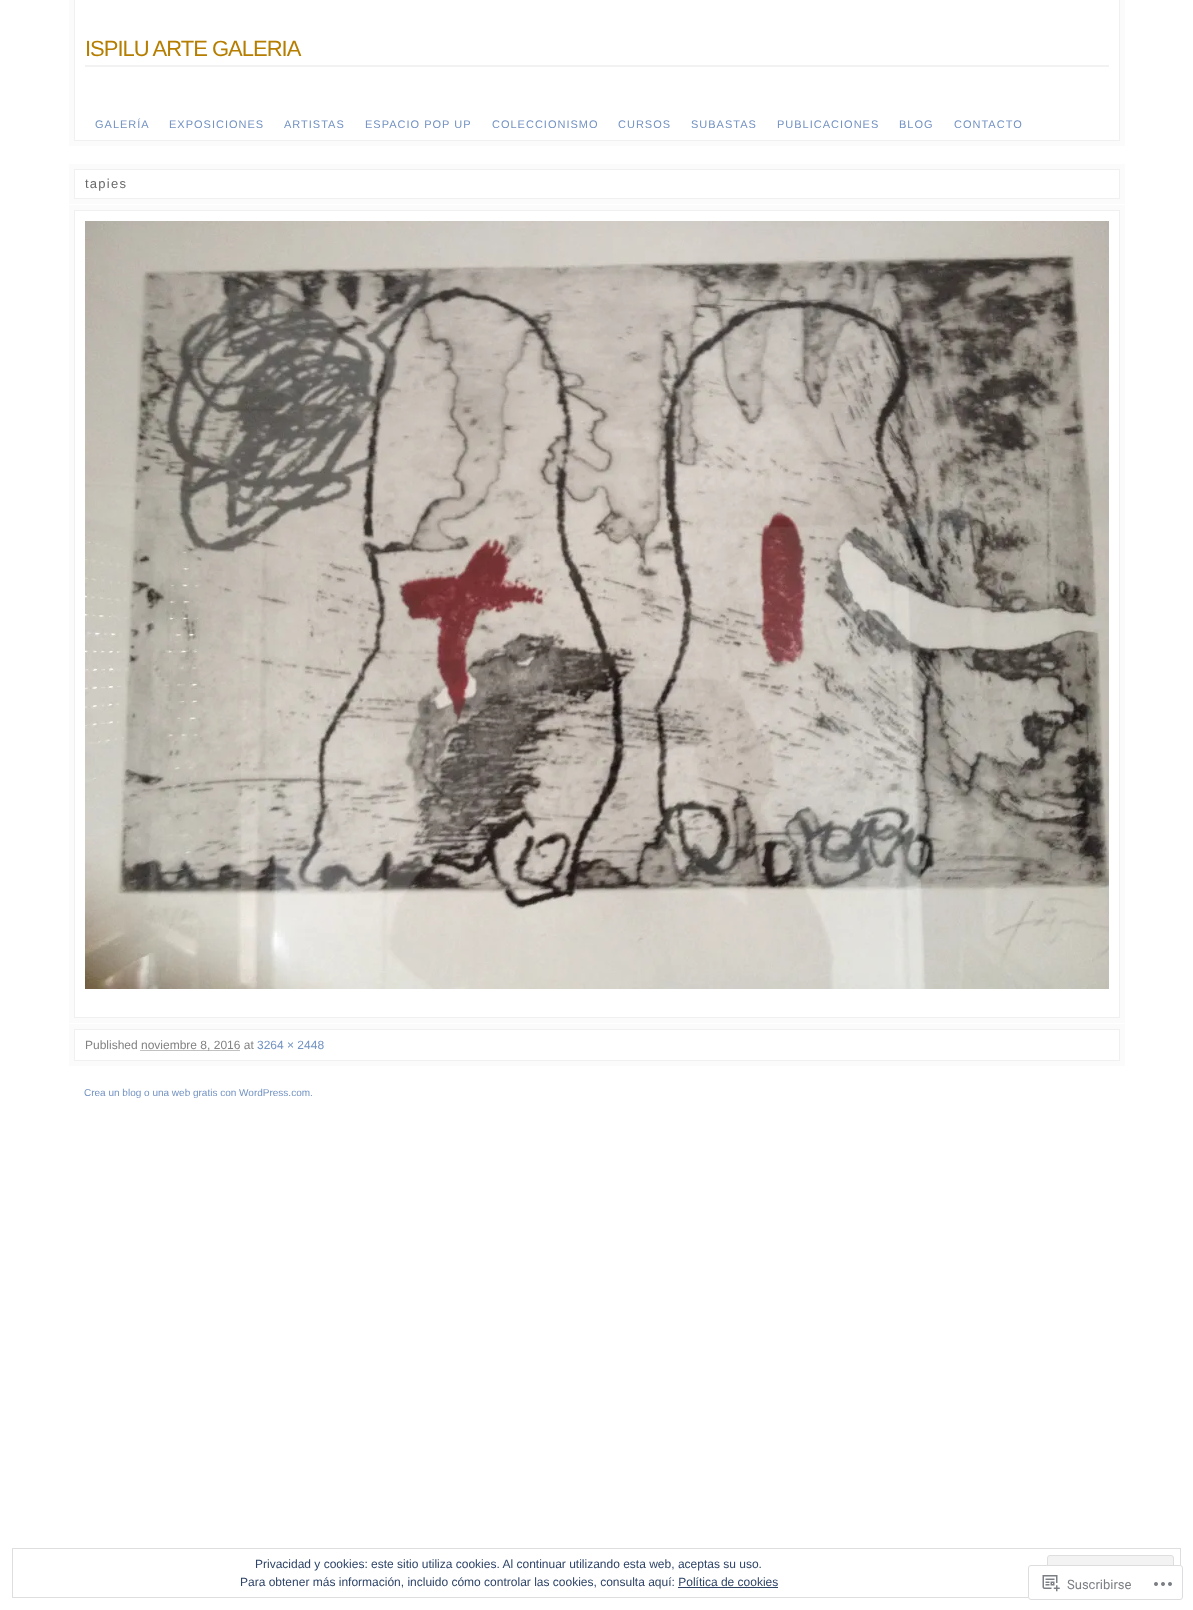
<svg xmlns="http://www.w3.org/2000/svg" width="1193" height="1610" viewBox="0 0 1193 1610">
  <rect width="100%" height="100%" fill="rgb(255,255,255)"/>
  <rect x="69" y="0" width="1056" height="146" fill="rgb(251,251,251)"/>
  <rect x="75" y="0" width="1044" height="140" fill="rgb(255,255,255)"/>
  <rect x="1119" y="0" width="1" height="141" fill="rgb(240,240,240)"/>
  <rect x="74" y="140" width="1046" height="1" fill="rgb(240,240,240)"/>
  <rect x="74" y="0" width="1" height="141" fill="rgb(240,240,240)"/>
  <rect x="85" y="65" width="1024" height="2" fill="rgb(242,242,242)"/>
  <text x="85" y="56" font-family="Liberation Sans" font-size="22" letter-spacing="-1" fill="rgb(181,126,0)">ISPILU ARTE GALERIA</text>
  <g font-family="Liberation Sans" font-size="11" letter-spacing="1" fill="rgb(114,146,194)">
    <text x="95" y="128">GALERÍA</text>
    <text x="169" y="128">EXPOSICIONES</text>
    <text x="284" y="128">ARTISTAS</text>
    <text x="365" y="128">ESPACIO POP UP</text>
    <text x="492" y="128">COLECCIONISMO</text>
    <text x="618" y="128">CURSOS</text>
    <text x="691" y="128">SUBASTAS</text>
    <text x="777" y="128">PUBLICACIONES</text>
    <text x="899" y="128">BLOG</text>
    <text x="954" y="128">CONTACTO</text>
  </g>
  <rect x="69" y="164" width="1056" height="40" fill="rgb(251,251,251)"/>
  <rect x="74.5" y="169.5" width="1045" height="29" fill="rgb(255,255,255)" stroke="rgb(240,240,240)"/>
  <text x="85" y="188" font-family="Liberation Sans" font-size="13" letter-spacing="1.25" fill="rgb(104,104,104)">tapies</text>
  <rect x="69" y="205" width="1056" height="818" fill="rgb(251,251,251)"/>
  <rect x="74.5" y="210.5" width="1045" height="807" fill="rgb(255,255,255)" stroke="rgb(240,240,240)"/>
  <image x="85" y="221" width="1024" height="768" href="pic1.png"/>
  <rect x="69" y="1024" width="1056" height="42" fill="rgb(251,251,251)"/>
  <rect x="74.5" y="1029.5" width="1045" height="31" fill="rgb(255,255,255)" stroke="rgb(240,240,240)"/>
  <text x="85" y="1049" font-family="Liberation Sans" font-size="12" fill="rgb(130,130,130)">Published</text>
  <path d="M140.5 1050.5H240" fill="none" stroke="rgb(130,130,130)" stroke-dasharray="1 1"/>
  <text x="141" y="1049" font-family="Liberation Sans" font-size="12" fill="rgb(130,130,130)">noviembre 8, 2016 at</text>
  <text x="257" y="1049" font-family="Liberation Sans" font-size="12" fill="rgb(114,146,194)">3264 × 2448</text>
  <text x="84" y="1096" font-family="Liberation Sans" font-size="10" fill="rgb(114,146,194)">Crea un blog o una web gratis con WordPress.com.</text>
  <rect x="12.5" y="1548.5" width="1168" height="49" fill="none" stroke="rgb(222,222,222)"/>
  <text x="255" y="1568" font-family="Liberation Sans" font-size="12" fill="rgb(46,68,103)">Privacidad y cookies: este sitio utiliza cookies. Al continuar utilizando esta web, aceptas su uso.</text>
  <rect x="1047.5" y="1555.5" width="126" height="35" rx="2.5" fill="rgb(243,243,243)" stroke="rgb(222,222,222)"/>
  <text x="240" y="1586" font-family="Liberation Sans" font-size="12" fill="rgb(46,68,103)">Para obtener más información, incluido cómo controlar las cookies, consulta aquí: Política de cookies</text>
  <rect x="678" y="1587" width="100" height="1" fill="rgb(46,68,103)"/>
  <rect x="1028" y="1565" width="155" height="35" rx="3" fill="rgba(255,255,255,0.98)"/>
  <rect x="1028.5" y="1565.5" width="154" height="34" rx="2.5" fill="none" stroke="rgba(220,220,222,0.98)"/>
  <image x="1042" y="1575" width="18" height="17" href="pic2.png"/>
  <text x="1067" y="1589" font-family="Roboto" font-size="13" fill="rgb(123,127,132)">Suscribirse</text>
  <image x="1154" y="1582" width="18" height="4" href="pic3.png"/>
</svg>
